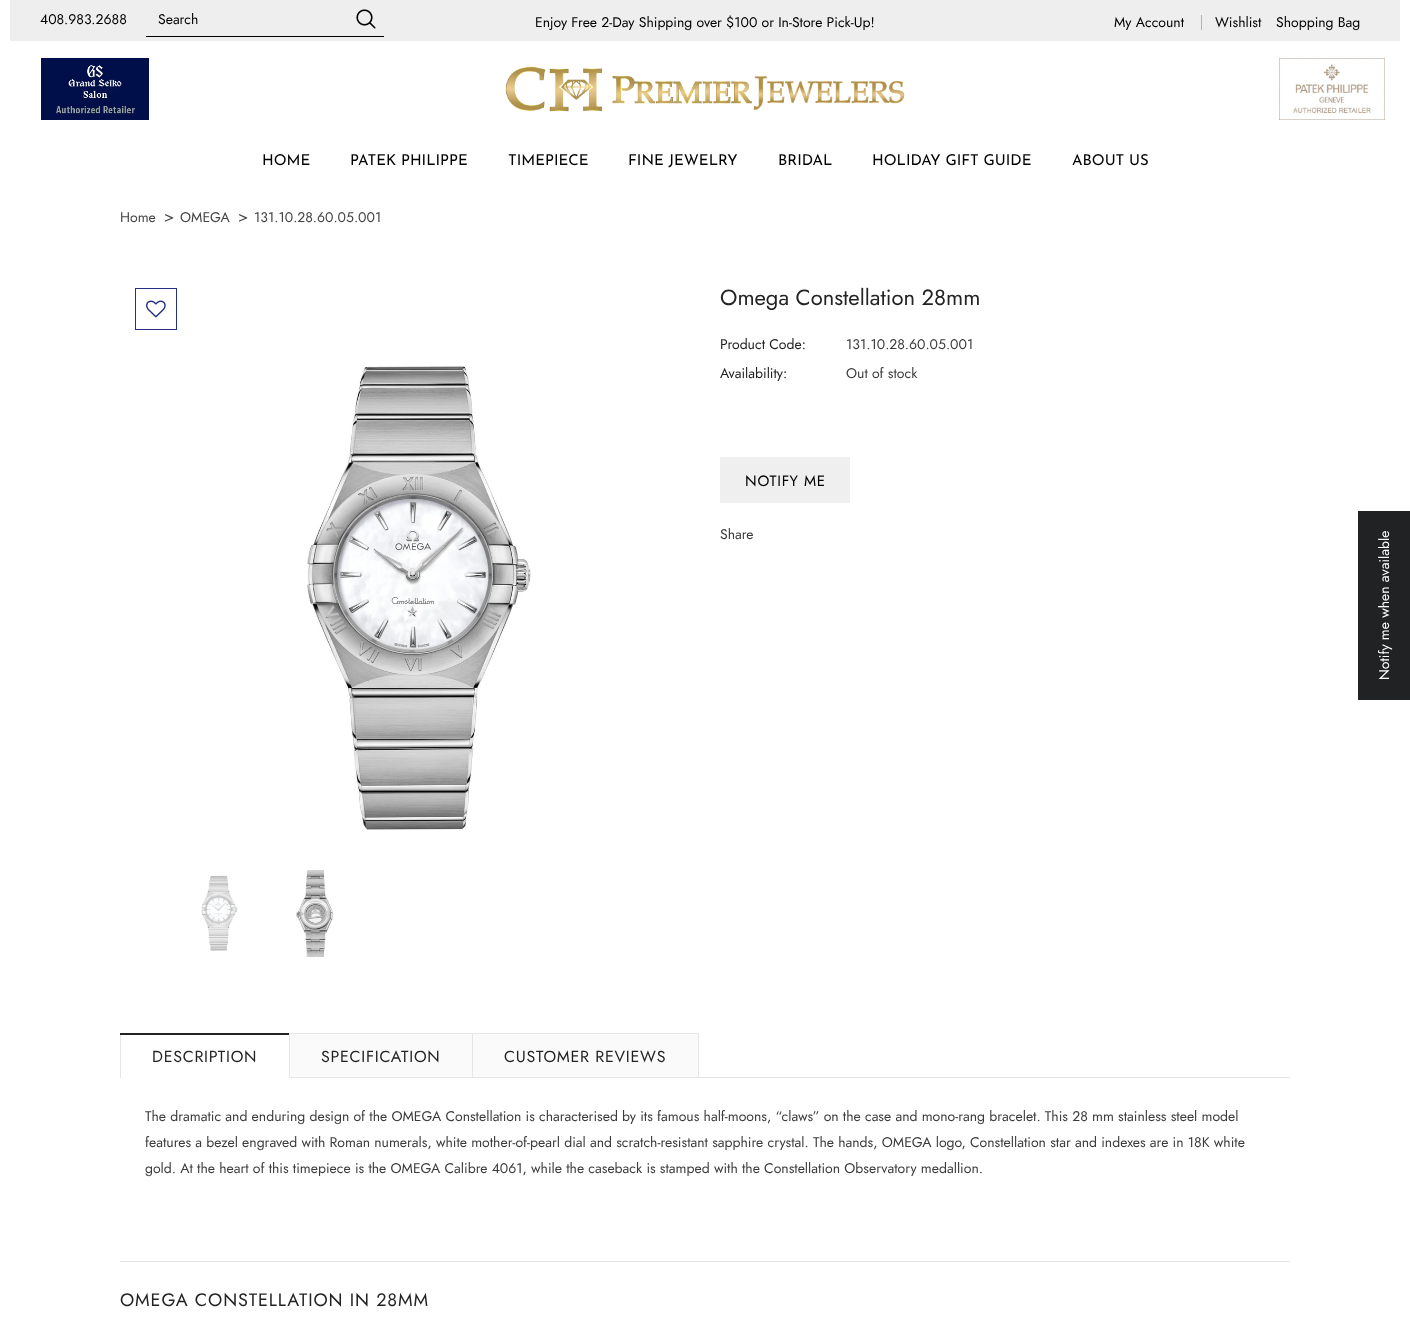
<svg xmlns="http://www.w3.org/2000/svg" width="1410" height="1318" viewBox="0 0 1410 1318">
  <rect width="100%" height="100%" fill="rgb(255,255,255)"/>
  <rect x="10" y="0" width="1390" height="41" fill="rgb(238,238,238)"/>
  <text x="40" y="24" font-family="Jost" font-size="14" fill="rgb(0,0,0)">408.983.2688</text>
  <rect x="146" y="36" width="238" height="1" fill="rgb(0,0,0)"/>
  <text x="158" y="24" font-family="Jost" font-size="14" fill="rgb(0,0,0)">Search</text>
  <image x="356" y="9" width="20" height="20" href="pic1.png"/>
  <g font-family="Jost" font-size="14" fill="rgb(0,0,0)">
    <text x="535" y="27">Enjoy Free 2-Day Shipping over $100 or In-Store Pick-Up!</text>
    <text x="1114" y="27">My Account</text>
  </g>
  <rect x="1201" y="15" width="1" height="15" fill="rgb(179,179,179)"/>
  <g font-family="Jost" font-size="14" fill="rgb(0,0,0)">
    <text x="1215" y="27">Wishlist</text>
    <text x="1276" y="27">Shopping Bag</text>
  </g>
  <image x="41" y="58" width="108" height="62" href="pic2.png"/>
  <image x="505" y="66" width="400" height="46" href="pic3.png"/>
  <image x="1279" y="58" width="106" height="62" href="pic4.png"/>
  <g font-family="Josefin Sans" font-size="15" fill="rgb(0,0,0)">
    <text x="262" y="165">HOME</text>
    <text x="350" y="165">PATEK PHILIPPE</text>
    <text x="508" y="165">TIMEPIECE</text>
    <text x="628" y="165">FINE JEWELRY</text>
    <text x="778" y="165">BRIDAL</text>
    <text x="872" y="165">HOLIDAY GIFT GUIDE</text>
    <text x="1072" y="165">ABOUT US</text>
  </g>
  <text x="120" y="222" font-family="Jost" font-size="14" fill="rgb(67,67,67)">Home</text>
  <text x="164" y="222" font-family="Jost" font-size="16" fill="rgb(67,67,67)">&gt;</text>
  <text x="180" y="222" font-family="Jost" font-size="14" fill="rgb(67,67,67)">OMEGA</text>
  <text x="238" y="222" font-family="Jost" font-size="16" fill="rgb(67,67,67)">&gt;</text>
  <text x="254" y="222" font-family="Jost" font-size="14" fill="rgb(67,67,67)">131.10.28.60.05.001</text>
  <rect x="135.5" y="288.5" width="41" height="41" fill="none" stroke="rgb(36,49,130)"/>
  <image x="146" y="300" width="20" height="18" href="pic5.png"/>
  <image x="307" y="366" width="224" height="464" href="pic6.png"/>
  <image x="201" y="875" width="37" height="76" href="pic7.png"/>
  <image x="296" y="870" width="37" height="87" href="pic8.png"/>
  <text x="720" y="305" font-family="Jost" font-size="22" fill="rgb(35,35,35)">Omega Constellation 28mm</text>
  <text x="720" y="349" font-family="Jost" font-size="14" fill="rgb(35,35,35)">Product Code:</text>
  <text x="846" y="349" font-family="Jost" font-size="14" fill="rgb(60,60,60)">131.10.28.60.05.001</text>
  <text x="720" y="378" font-family="Jost" font-size="14" fill="rgb(35,35,35)">Availability:</text>
  <text x="846" y="378" font-family="Jost" font-size="14" fill="rgb(60,60,60)">Out of stock</text>
  <rect x="720" y="457" width="130" height="46" fill="rgb(239,239,239)"/>
  <text x="745" y="486" font-family="Jost" font-size="15" letter-spacing="0.75" fill="rgb(0,0,0)">NOTIFY ME</text>
  <text x="720" y="539" font-family="Jost" font-size="14" fill="rgb(60,60,60)">Share</text>
  <rect x="120" y="1077" width="1170" height="1" fill="rgb(230,230,230)"/>
  <rect x="120" y="1033" width="1" height="44" fill="rgb(230,230,230)"/>
  <rect x="120" y="1033" width="170" height="2" fill="rgb(35,35,35)"/>
  <text x="152" y="1062" font-family="Jost" font-size="16" letter-spacing="0.75" fill="rgb(35,35,35)">DESCRIPTION</text>
  <rect x="121" y="1077" width="168" height="1" fill="rgb(255,255,255)"/>
  <rect x="290" y="1034" width="182" height="43" fill="rgb(250,250,250)"/>
  <rect x="289" y="1033" width="410" height="1" fill="rgb(230,230,230)"/>
  <rect x="289" y="1033" width="1" height="44" fill="rgb(230,230,230)"/>
  <text x="321" y="1062" font-family="Jost" font-size="16" letter-spacing="0.75" fill="rgb(35,35,35)">SPECIFICATION</text>
  <rect x="473" y="1034" width="225" height="43" fill="rgb(250,250,250)"/>
  <rect x="698" y="1033" width="1" height="44" fill="rgb(230,230,230)"/>
  <rect x="472" y="1033" width="1" height="44" fill="rgb(230,230,230)"/>
  <text x="504" y="1062" font-family="Jost" font-size="16" letter-spacing="0.75" fill="rgb(35,35,35)">CUSTOMER REVIEWS</text>
  <g font-family="Jost" font-size="14" fill="rgb(60,60,60)">
    <text>
      <tspan x="145" y="1121">The dramatic and enduring design of the OMEGA Constellation is characterised by its famous half-moons, “claws” on the case and mono-rang bracelet. This 28 mm stainless steel model</tspan>
      <tspan x="145" y="1147">features a bezel engraved with Roman numerals, white mother-of-pearl dial and scratch-resistant sapphire crystal. The hands, OMEGA logo, Constellation star and indexes are in 18K white</tspan>
      <tspan x="145" y="1173">gold. At the heart of this timepiece is the OMEGA Calibre 4061, while the caseback is stamped with the Constellation Observatory medallion.</tspan>
    </text>
  </g>
  <rect x="120" y="1261" width="1170" height="1" fill="rgb(230,230,230)"/>
  <text x="120" y="1306" font-family="Jost" font-size="18" letter-spacing="0.9" fill="rgb(35,35,35)">OMEGA CONSTELLATION IN 28MM</text>
  <rect x="1358" y="511" width="52" height="189" fill="rgb(32,34,35)"/>
  <text x="1389" y="680" transform="rotate(-90 1389 680)" font-family="Jost" font-size="14" fill="rgb(255,255,255)">Notify me when available</text>
</svg>
